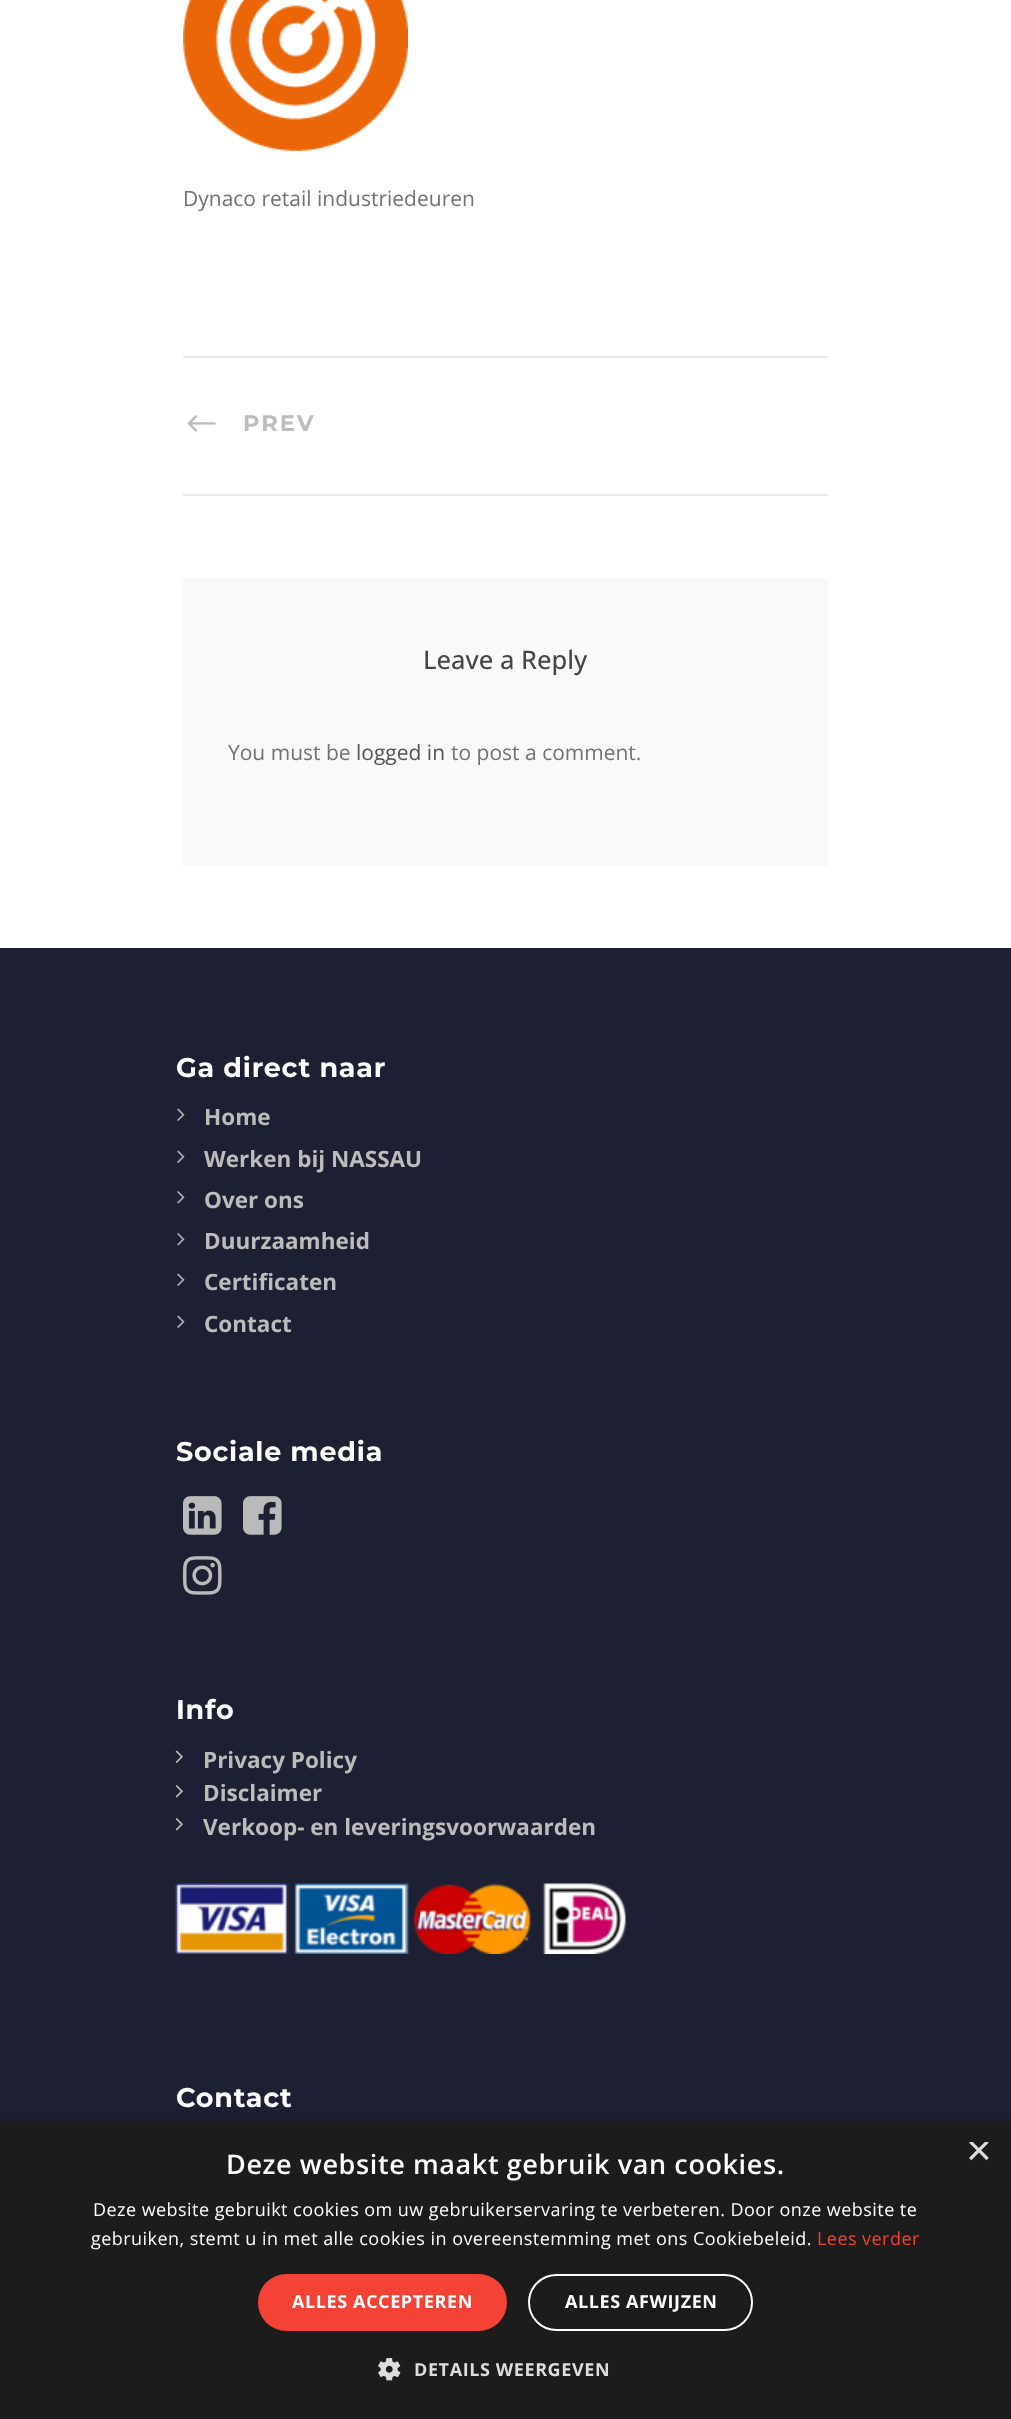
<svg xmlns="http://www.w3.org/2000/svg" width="1011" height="2419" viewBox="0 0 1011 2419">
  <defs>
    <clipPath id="clip1"><rect x="966" y="2142" width="23" height="23"/></clipPath>
  </defs>
  <rect width="100%" height="100%" fill="rgb(255,255,255)"/>
  <image x="183" y="0" width="225" height="151" href="pic1.png"/>
  <text x="183" y="206" font-family="Open Sans" font-size="21" fill="rgb(114,114,114)">Dynaco retail industriedeuren</text>
  <rect x="183" y="356" width="645" height="2" fill="rgb(234,234,234)"/>
  <rect x="183" y="494" width="645" height="2" fill="rgb(234,234,234)"/>
  <image x="187" y="415" width="29" height="17" href="pic2.png"/>
  <text x="243" y="431" font-family="Montserrat" font-size="22.5" font-weight="bold" letter-spacing="2" fill="rgb(188,188,188)">PREV</text>
  <rect x="183" y="578" width="645" height="288" fill="rgb(249,249,249)"/>
  <text x="423" y="669" font-family="Open Sans" font-size="25.5" font-weight="500" fill="rgb(70,70,70)">Leave a Reply</text>
  <text x="228" y="760" font-family="Open Sans" font-size="21" fill="rgb(114,114,114)">You must be</text>
  <text x="356" y="760" font-family="Open Sans" font-size="21" fill="rgb(84,84,84)">logged in</text>
  <text x="451" y="760" font-family="Open Sans" font-size="21" fill="rgb(114,114,114)">to post a comment.</text>
  <rect x="0" y="948" width="1011" height="1173" fill="rgb(29,32,51)"/>
  <text x="176" y="1077" font-family="Montserrat" font-size="27" font-weight="bold" letter-spacing="0.75" fill="rgb(255,255,255)">Ga direct naar</text>
  <image x="177" y="1108" width="8" height="13" href="pic3.png"/>
  <text x="204" y="1125" font-family="Open Sans" font-size="22.5" font-weight="bold" fill="rgb(188,188,188)">Home</text>
  <image x="177" y="1150" width="8" height="13" href="pic3.png"/>
  <text x="204" y="1167" font-family="Open Sans" font-size="22.5" font-weight="bold" fill="rgb(188,188,188)">Werken bij NASSAU</text>
  <image x="177" y="1191" width="8" height="13" href="pic4.png"/>
  <text x="204" y="1208" font-family="Open Sans" font-size="22.5" font-weight="bold" fill="rgb(188,188,188)">Over ons</text>
  <image x="177" y="1233" width="8" height="13" href="pic4.png"/>
  <text x="204" y="1249" font-family="Open Sans" font-size="22.5" font-weight="bold" fill="rgb(188,188,188)">Duurzaamheid</text>
  <image x="177" y="1273" width="8" height="13" href="pic3.png"/>
  <text x="204" y="1290" font-family="Open Sans" font-size="22.5" font-weight="bold" fill="rgb(188,188,188)">Certificaten</text>
  <image x="177" y="1315" width="8" height="13" href="pic3.png"/>
  <text x="204" y="1332" font-family="Open Sans" font-size="22.5" font-weight="bold" fill="rgb(188,188,188)">Contact</text>
  <text x="176" y="1461" font-family="Montserrat" font-size="27" font-weight="bold" letter-spacing="0.75" fill="rgb(255,255,255)">Sociale media</text>
  <image x="183" y="1496" width="39" height="39" href="pic5.png"/>
  <image x="243" y="1496" width="39" height="39" href="pic6.png"/>
  <image x="183" y="1556" width="39" height="39" href="pic7.png"/>
  <text x="176" y="1719" font-family="Montserrat" font-size="27" font-weight="bold" letter-spacing="0.75" fill="rgb(255,255,255)">Info</text>
  <image x="175" y="1750" width="8" height="13" href="pic8.png"/>
  <text x="203" y="1768" font-family="Open Sans" font-size="22.5" font-weight="bold" fill="rgb(188,188,188)">Privacy Policy</text>
  <image x="175" y="1785" width="8" height="13" href="pic9.png"/>
  <text x="203" y="1801" font-family="Open Sans" font-size="22.5" font-weight="bold" fill="rgb(188,188,188)">Disclaimer</text>
  <image x="175" y="1818" width="8" height="13" href="pic9.png"/>
  <text x="203" y="1835" font-family="Open Sans" font-size="22.5" font-weight="bold" fill="rgb(188,188,188)">Verkoop- en leveringsvoorwaarden</text>
  <image x="175" y="1883" width="451" height="71" href="pic10.png"/>
  <text x="176" y="2107" font-family="Montserrat" font-size="27" font-weight="bold" letter-spacing="0.75" fill="rgb(255,255,255)">Contact</text>
  <rect x="2" y="2124" width="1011" height="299" fill="rgba(0,0,0,0.35)" filter="blur(6px)"/>
  <rect x="0" y="2121" width="1011" height="298" fill="rgb(28,28,28)"/>
  <text x="226" y="2174" font-family="Open Sans" font-size="27" font-weight="600" letter-spacing="0.6" fill="rgb(255,255,255)">Deze website maakt gebruik van cookies.</text>
  <g clip-path="url(#clip1)">
    <text x="966" y="2165" font-family="Liberation Sans" font-size="44" fill="rgb(221,221,221)">×</text>
  </g>
  <g font-family="Open Sans" font-size="18" letter-spacing="0.45" fill="rgb(255,255,255)">
    <text x="93" y="2216">Deze website gebruikt cookies om uw gebruikerservaring te verbeteren. Door onze website te</text>
    <text x="91" y="2245">gebruiken, stemt u in met alle cookies in overeenstemming met ons Cookiebeleid.</text>
  </g>
  <text x="817" y="2245" font-family="Open Sans" font-size="18" letter-spacing="0.45" fill="rgb(244,67,54)">Lees verder</text>
  <rect x="258" y="2274" width="249" height="57" rx="28.5" fill="rgb(244,67,54)"/>
  <text x="292" y="2308" font-family="Open Sans" font-size="18" font-weight="bold" letter-spacing="0.6" fill="rgb(255,255,255)">ALLES ACCEPTEREN</text>
  <rect x="529" y="2275" width="223" height="55" rx="27.5" fill="none" stroke="rgb(255,255,255)" stroke-width="2"/>
  <text x="565" y="2308" font-family="Open Sans" font-size="18" font-weight="bold" letter-spacing="0.6" fill="rgb(255,255,255)">ALLES AFWIJZEN</text>
  <image x="378" y="2358" width="23" height="23" href="pic11.png"/>
  <text x="414" y="2376" font-family="Open Sans" font-size="18" font-weight="bold" letter-spacing="0.6" fill="rgb(221,221,221)">DETAILS WEERGEVEN</text>
</svg>
